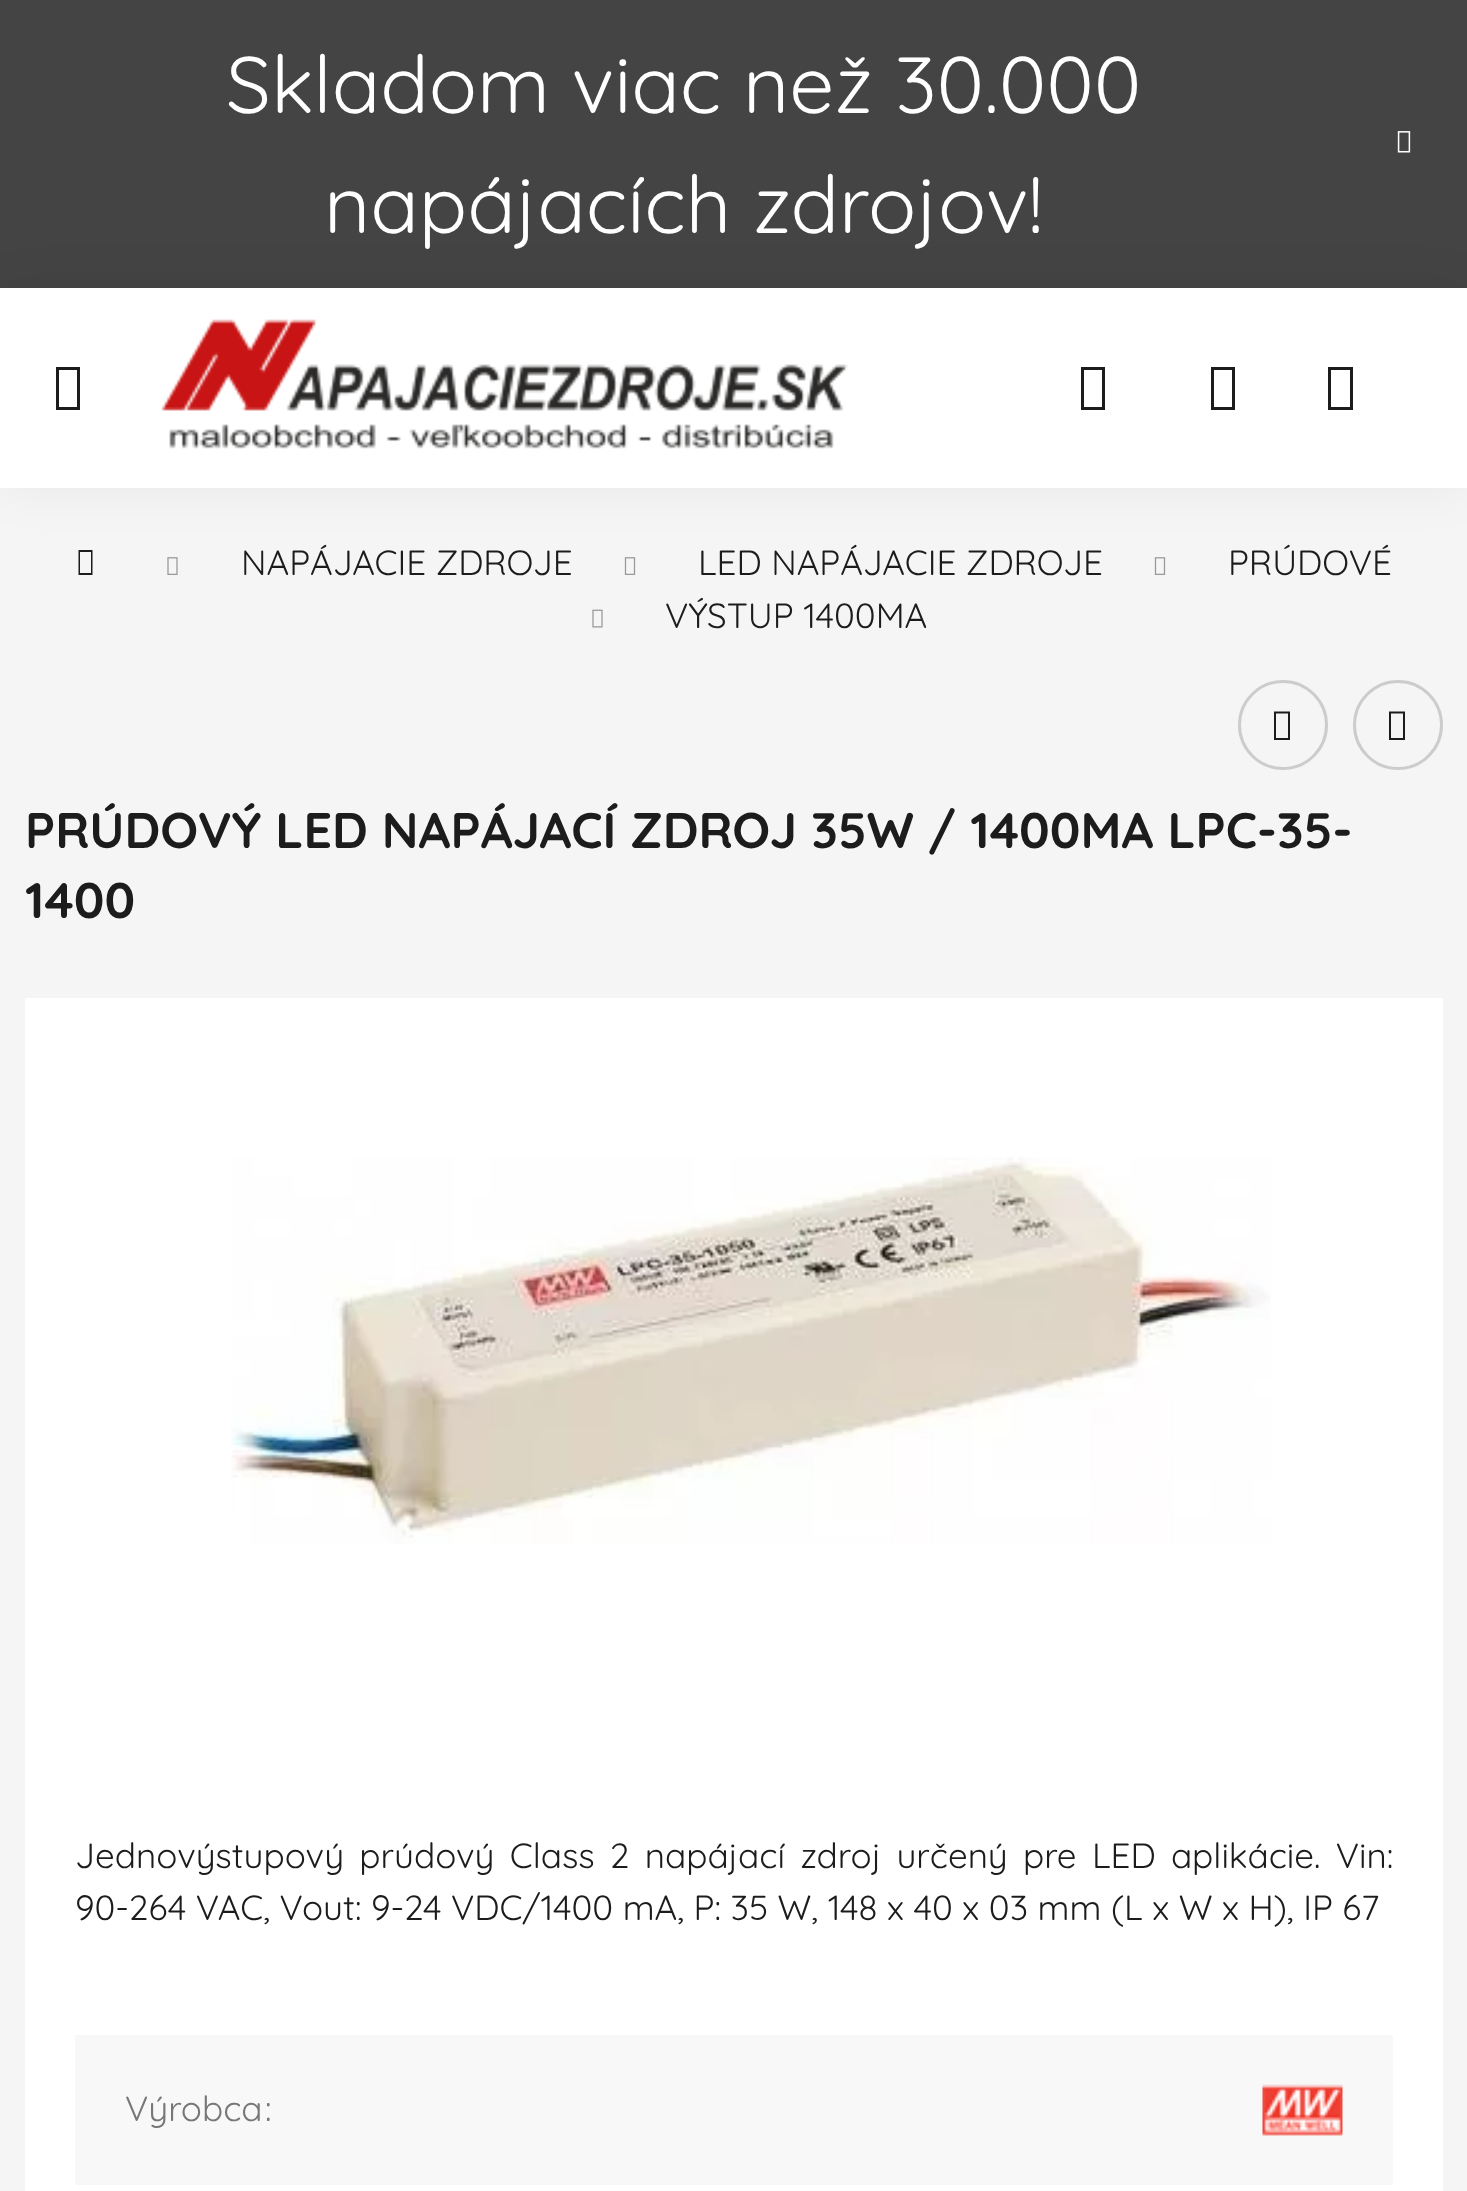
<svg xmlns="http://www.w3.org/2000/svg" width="1467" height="2191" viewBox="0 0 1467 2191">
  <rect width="100%" height="100%" fill="rgb(245,245,245)"/>
  <rect x="0" y="0" width="1467" height="288" fill="rgb(68,68,68)"/>
  <g font-family="Quicksand" font-size="80" fill="rgb(255,255,255)">
    <text x="226" y="113">Skladom viac než 30.000</text>
    <text x="324" y="233">napájacích zdrojov!</text>
  </g>
  <image x="1397" y="131" width="14" height="22" href="pic1.png"/>
  <path d="M78.5 575V550H92.5V575ZM80 573H91V552H80Z" fill="rgb(28,28,28)"/>
  <image x="167" y="557" width="11" height="18" href="pic3.png"/>
  <image x="624" y="557" width="12" height="18" href="pic4.png"/>
  <image x="1154" y="557" width="12" height="18" href="pic4.png"/>
  <rect x="0" y="288" width="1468" height="200" fill="rgba(0,0,0,0.05)" filter="blur(25px)"/>
  <rect x="0" y="288" width="1467" height="200" fill="rgb(255,255,255)"/>
  <path d="M56 410V367H80V410ZM59 407H77V370H59Z" fill="rgb(28,28,28)"/>
  <image x="161" y="319" width="687" height="130" href="pic2.png"/>
  <path d="M1081 410V367H1105V410ZM1084 407H1102V370H1084Z" fill="rgb(28,28,28)"/>
  <path d="M1211 410V367H1235V410ZM1214 407H1232V370H1214Z" fill="rgb(28,28,28)"/>
  <path d="M1328 410V367H1353V410ZM1331 407H1350V370H1331Z" fill="rgb(28,28,28)"/>
  <g font-family="Quicksand" font-size="35" fill="rgb(28,28,28)">
    <text x="241" y="575">NAPÁJACIE ZDROJE</text>
    <text x="698" y="575">LED NAPÁJACIE ZDROJE</text>
    <text x="1228" y="575">PRÚDOVÉ</text>
  </g>
  <image x="592" y="609" width="11" height="19" href="pic5.png"/>
  <text x="665" y="628" font-family="Quicksand" font-size="35" fill="rgb(28,28,28)">VÝSTUP 1400MA</text>
  <circle cx="1283" cy="725" r="43.5" fill="none" stroke="rgb(204,204,204)" stroke-width="3"/>
  <path d="M1274 740V711.5H1290V740ZM1276 738H1288V713.5H1276Z" fill="rgb(28,28,28)"/>
  <circle cx="1398" cy="725" r="43.5" fill="none" stroke="rgb(204,204,204)" stroke-width="3"/>
  <path d="M1389 740V711.5H1405V740ZM1391 738H1403V713.5H1391Z" fill="rgb(28,28,28)"/>
  <g font-family="Quicksand" font-size="50" font-weight="bold" fill="rgb(28,28,28)">
    <text>
      <tspan x="25" y="848">PRÚDOVÝ LED NAPÁJACÍ ZDROJ 35W / 1400MA LPC-35-</tspan>
      <tspan x="25" y="918">1400</tspan>
    </text>
  </g>
  <rect x="25" y="998" width="1418" height="1193" fill="rgb(255,255,255)"/>
  <image x="231" y="1157" width="1040" height="387" href="pic6.png"/>
  <g font-family="Quicksand" font-size="35" fill="rgb(28,28,28)">
    <text>
      <tspan x="75" y="1868" word-spacing="5.75">Jednovýstupový prúdový Class 2 napájací zdroj určený pre LED aplikácie. Vin:</tspan>
      <tspan x="75" y="1920">90-264 VAC, Vout: 9-24 VDC/1400 mA, P: 35 W, 148 x 40 x 03 mm (L x W x H), IP 67</tspan>
    </text>
  </g>
  <rect x="75" y="2035" width="1318" height="150" fill="rgb(248,248,248)"/>
  <g font-family="Quicksand" font-size="35" fill="rgb(119,119,119)">
    <text x="125" y="2121">Výrobca</text>
    <text x="265" y="2121">:</text>
  </g>
  <image x="1262" y="2084" width="81" height="52" href="pic7.png"/>
</svg>
